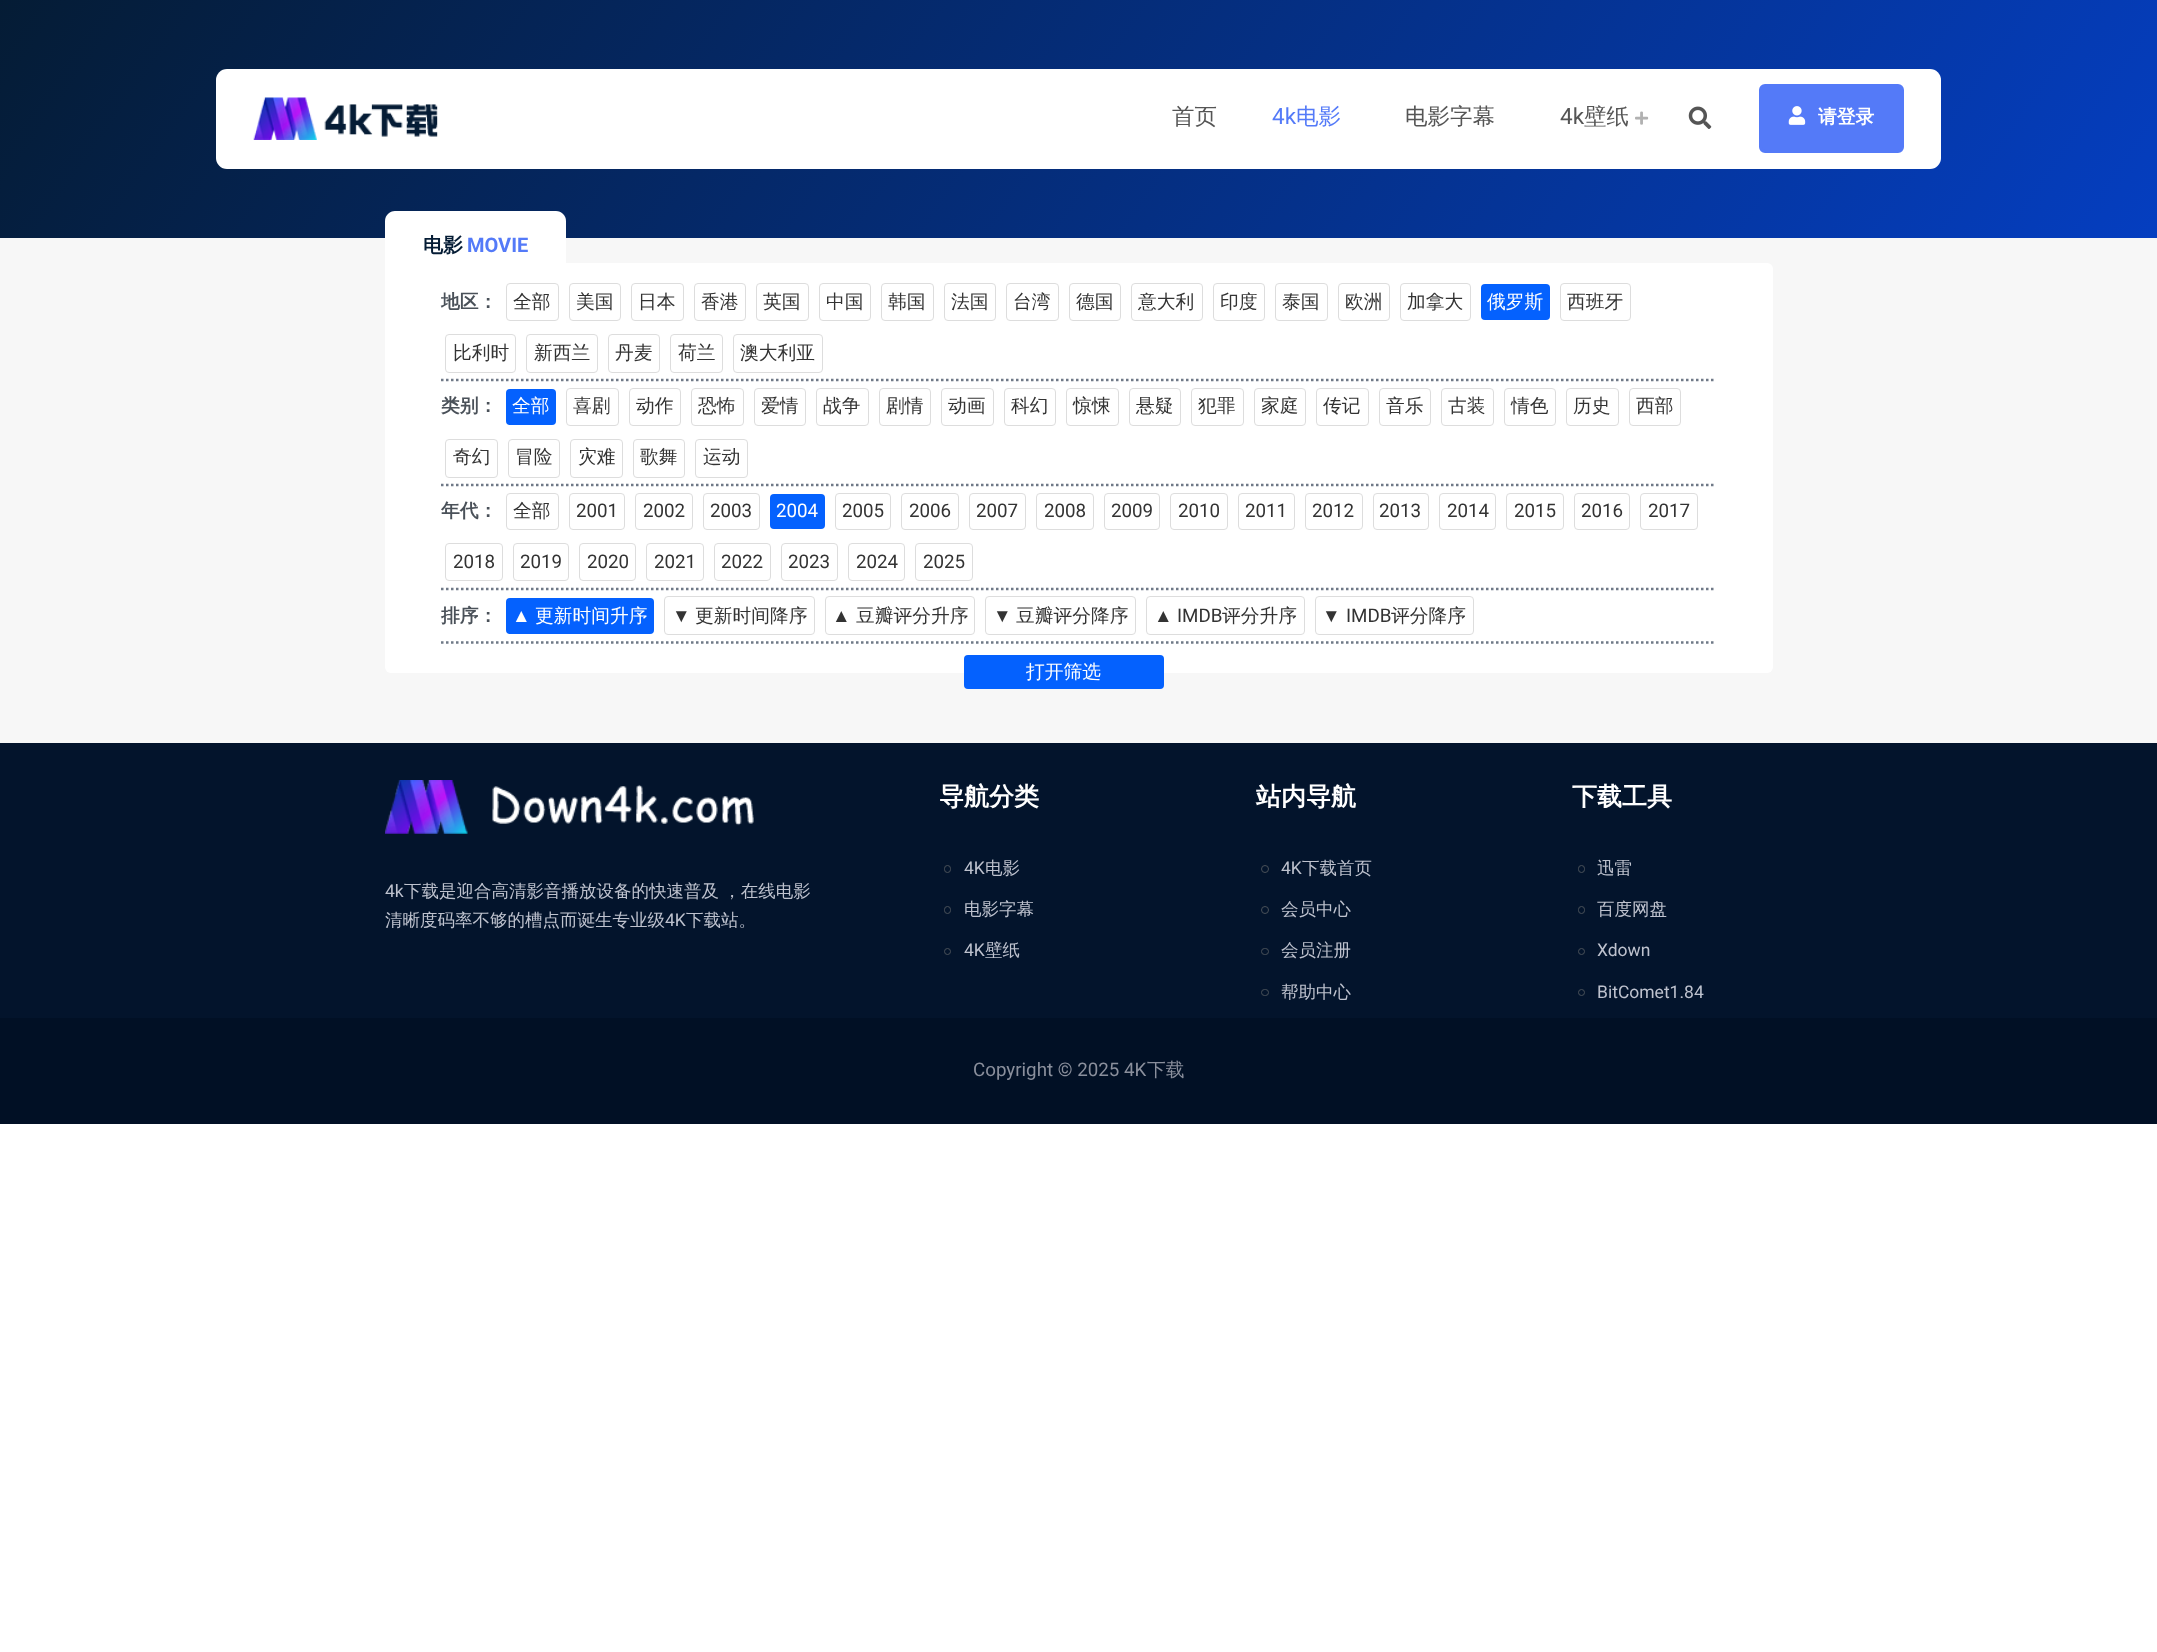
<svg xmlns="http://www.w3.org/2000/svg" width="2157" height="1652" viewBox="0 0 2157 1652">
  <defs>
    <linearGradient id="g1" gradientUnits="userSpaceOnUse" x1="1858" y1="665" x2="299" y2="-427"><stop offset="0" stop-color="rgb(5,62,192)"/><stop offset="1" stop-color="rgb(5,28,53)"/></linearGradient>
  </defs>
  <rect width="100%" height="100%" fill="rgb(255,255,255)"/>
  <rect x="0" y="0" width="2157" height="238" fill="url(#g1)"/>
  <rect x="216" y="69" width="1725" height="100" rx="11" fill="rgb(255,255,255)"/>
  <image x="253" y="97" width="185" height="43" href="pic1.png"/>
  <text x="1172" y="124" font-family="WenQuanYi Zen Hei" font-size="22.5" font-weight="500" fill="rgb(85,85,85)">首页</text>
  <text x="1272" y="124" font-family="Roboto" font-size="22.5" fill="rgb(84,122,248)">4k</text>
  <text x="1296" y="124" font-family="WenQuanYi Zen Hei" font-size="22.5" font-weight="500" fill="rgb(84,122,248)">电影</text>
  <text x="1405" y="124" font-family="WenQuanYi Zen Hei" font-size="22.5" font-weight="500" fill="rgb(85,85,85)">电影字幕</text>
  <text x="1560" y="124" font-family="Roboto" font-size="22.5" fill="rgb(85,85,85)">4k</text>
  <text x="1584" y="124" font-family="WenQuanYi Zen Hei" font-size="22.5" font-weight="500" fill="rgb(85,85,85)">壁纸</text>
  <image x="1635" y="111" width="14" height="14" href="pic2.png"/>
  <image x="1688" y="106" width="24" height="23" href="pic3.png"/>
  <rect x="1760.5" y="85.5" width="142" height="66" rx="4.5" fill="rgb(84,122,248)" stroke="rgb(84,122,248)" stroke-width="3"/>
  <image x="1788" y="106" width="18" height="19" href="pic4.png"/>
  <text x="1818" y="123" font-family="WenQuanYi Zen Hei" font-size="18.75" font-weight="bold" fill="rgb(255,255,255)">请登录</text>
  <rect x="0" y="238" width="2157" height="505" fill="rgb(247,247,247)"/>
  <rect x="385" y="263" width="1388" height="410" rx="6" fill="rgb(255,255,255)"/>
  <path d="M395 211H556C561.5 211 566 215.5 566 221V281H385V221C385 215.5 389.5 211 395 211Z" fill="rgb(255,255,255)"/>
  <text x="423" y="252" font-family="WenQuanYi Zen Hei" font-size="20" font-weight="bold" fill="rgb(5,28,53)">电影</text>
  <text x="467" y="252" font-family="Roboto" font-size="20" font-weight="bold" fill="rgb(84,122,248)">MOVIE</text>
  <path d="M441 380H1716" fill="none" stroke="rgb(111,121,135)" stroke-width="2.5" stroke-dasharray="2.5 2.5"/>
  <text x="441" y="308" font-family="WenQuanYi Zen Hei" font-size="18.75" font-weight="bold" fill="rgb(74,81,89)">地区：</text>
  <rect x="506.5" y="283.5" width="52" height="37" rx="3.5" fill="none" stroke="rgb(221,221,221)"/>
  <text x="513" y="308" font-family="WenQuanYi Zen Hei" font-size="18.75" font-weight="500" fill="rgb(51,51,51)">全部</text>
  <rect x="569.5" y="283.5" width="51" height="37" rx="3.5" fill="none" stroke="rgb(221,221,221)"/>
  <text x="576" y="308" font-family="WenQuanYi Zen Hei" font-size="18.75" font-weight="500" fill="rgb(51,51,51)">美国</text>
  <rect x="631.5" y="283.5" width="52" height="37" rx="3.5" fill="none" stroke="rgb(221,221,221)"/>
  <text x="638" y="308" font-family="WenQuanYi Zen Hei" font-size="18.75" font-weight="500" fill="rgb(51,51,51)">日本</text>
  <rect x="694.5" y="283.5" width="51" height="37" rx="3.5" fill="none" stroke="rgb(221,221,221)"/>
  <text x="701" y="308" font-family="WenQuanYi Zen Hei" font-size="18.75" font-weight="500" fill="rgb(51,51,51)">香港</text>
  <rect x="756.5" y="283.5" width="52" height="37" rx="3.5" fill="none" stroke="rgb(221,221,221)"/>
  <text x="763" y="308" font-family="WenQuanYi Zen Hei" font-size="18.75" font-weight="500" fill="rgb(51,51,51)">英国</text>
  <rect x="819.5" y="283.5" width="51" height="37" rx="3.5" fill="none" stroke="rgb(221,221,221)"/>
  <text x="826" y="308" font-family="WenQuanYi Zen Hei" font-size="18.75" font-weight="500" fill="rgb(51,51,51)">中国</text>
  <rect x="881.5" y="283.5" width="52" height="37" rx="3.5" fill="none" stroke="rgb(221,221,221)"/>
  <text x="888" y="308" font-family="WenQuanYi Zen Hei" font-size="18.75" font-weight="500" fill="rgb(51,51,51)">韩国</text>
  <rect x="944.5" y="283.5" width="51" height="37" rx="3.5" fill="none" stroke="rgb(221,221,221)"/>
  <text x="951" y="308" font-family="WenQuanYi Zen Hei" font-size="18.75" font-weight="500" fill="rgb(51,51,51)">法国</text>
  <rect x="1006.5" y="283.5" width="52" height="37" rx="3.5" fill="none" stroke="rgb(221,221,221)"/>
  <text x="1013" y="308" font-family="WenQuanYi Zen Hei" font-size="18.75" font-weight="500" fill="rgb(51,51,51)">台湾</text>
  <rect x="1069.5" y="283.5" width="51" height="37" rx="3.5" fill="none" stroke="rgb(221,221,221)"/>
  <text x="1076" y="308" font-family="WenQuanYi Zen Hei" font-size="18.75" font-weight="500" fill="rgb(51,51,51)">德国</text>
  <rect x="1131.5" y="283.5" width="71" height="37" rx="3.5" fill="none" stroke="rgb(221,221,221)"/>
  <text x="1138" y="308" font-family="WenQuanYi Zen Hei" font-size="18.75" font-weight="500" fill="rgb(51,51,51)">意大利</text>
  <rect x="1213.5" y="283.5" width="51" height="37" rx="3.5" fill="none" stroke="rgb(221,221,221)"/>
  <text x="1220" y="308" font-family="WenQuanYi Zen Hei" font-size="18.75" font-weight="500" fill="rgb(51,51,51)">印度</text>
  <rect x="1275.5" y="283.5" width="52" height="37" rx="3.5" fill="none" stroke="rgb(221,221,221)"/>
  <text x="1282" y="308" font-family="WenQuanYi Zen Hei" font-size="18.75" font-weight="500" fill="rgb(51,51,51)">泰国</text>
  <rect x="1338.5" y="283.5" width="51" height="37" rx="3.5" fill="none" stroke="rgb(221,221,221)"/>
  <text x="1345" y="308" font-family="WenQuanYi Zen Hei" font-size="18.75" font-weight="500" fill="rgb(51,51,51)">欧洲</text>
  <rect x="1400.5" y="283.5" width="70" height="37" rx="3.5" fill="none" stroke="rgb(221,221,221)"/>
  <text x="1407" y="308" font-family="WenQuanYi Zen Hei" font-size="18.75" font-weight="500" fill="rgb(51,51,51)">加拿大</text>
  <rect x="1481" y="284" width="69" height="36" rx="4" fill="rgb(4,97,254)"/>
  <text x="1487" y="308" font-family="WenQuanYi Zen Hei" font-size="18.75" font-weight="500" fill="rgb(255,255,255)">俄罗斯</text>
  <rect x="1560.5" y="283.5" width="70" height="37" rx="3.5" fill="none" stroke="rgb(221,221,221)"/>
  <text x="1567" y="308" font-family="WenQuanYi Zen Hei" font-size="18.75" font-weight="500" fill="rgb(51,51,51)">西班牙</text>
  <rect x="445.5" y="334.5" width="70" height="38" rx="3.5" fill="none" stroke="rgb(221,221,221)"/>
  <text x="453" y="359" font-family="WenQuanYi Zen Hei" font-size="18.75" font-weight="500" fill="rgb(51,51,51)">比利时</text>
  <rect x="526.5" y="334.5" width="71" height="38" rx="3.5" fill="none" stroke="rgb(221,221,221)"/>
  <text x="534" y="359" font-family="WenQuanYi Zen Hei" font-size="18.75" font-weight="500" fill="rgb(51,51,51)">新西兰</text>
  <rect x="608.5" y="334.5" width="51" height="38" rx="3.5" fill="none" stroke="rgb(221,221,221)"/>
  <text x="615" y="359" font-family="WenQuanYi Zen Hei" font-size="18.75" font-weight="500" fill="rgb(51,51,51)">丹麦</text>
  <rect x="670.5" y="334.5" width="52" height="38" rx="3.5" fill="none" stroke="rgb(221,221,221)"/>
  <text x="678" y="359" font-family="WenQuanYi Zen Hei" font-size="18.75" font-weight="500" fill="rgb(51,51,51)">荷兰</text>
  <rect x="733.5" y="334.5" width="89" height="38" rx="3.5" fill="none" stroke="rgb(221,221,221)"/>
  <text x="740" y="359" font-family="WenQuanYi Zen Hei" font-size="18.75" font-weight="500" fill="rgb(51,51,51)">澳大利亚</text>
  <path d="M441 485H1716" fill="none" stroke="rgb(111,121,135)" stroke-width="2.5" stroke-dasharray="2.5 2.5"/>
  <text x="441" y="412" font-family="WenQuanYi Zen Hei" font-size="18.75" font-weight="bold" fill="rgb(74,81,89)">类别：</text>
  <rect x="506" y="389" width="50" height="36" rx="4" fill="rgb(4,97,254)"/>
  <text x="512" y="412" font-family="WenQuanYi Zen Hei" font-size="18.75" font-weight="500" fill="rgb(255,255,255)">全部</text>
  <rect x="566.5" y="388.5" width="52" height="37" rx="3.5" fill="none" stroke="rgb(221,221,221)"/>
  <text x="573" y="412" font-family="WenQuanYi Zen Hei" font-size="18.75" font-weight="500" fill="rgb(51,51,51)">喜剧</text>
  <rect x="629.5" y="388.5" width="51" height="37" rx="3.5" fill="none" stroke="rgb(221,221,221)"/>
  <text x="636" y="412" font-family="WenQuanYi Zen Hei" font-size="18.75" font-weight="500" fill="rgb(51,51,51)">动作</text>
  <rect x="691.5" y="388.5" width="52" height="37" rx="3.5" fill="none" stroke="rgb(221,221,221)"/>
  <text x="698" y="412" font-family="WenQuanYi Zen Hei" font-size="18.75" font-weight="500" fill="rgb(51,51,51)">恐怖</text>
  <rect x="754.5" y="388.5" width="51" height="37" rx="3.5" fill="none" stroke="rgb(221,221,221)"/>
  <text x="761" y="412" font-family="WenQuanYi Zen Hei" font-size="18.75" font-weight="500" fill="rgb(51,51,51)">爱情</text>
  <rect x="816.5" y="388.5" width="52" height="37" rx="3.5" fill="none" stroke="rgb(221,221,221)"/>
  <text x="823" y="412" font-family="WenQuanYi Zen Hei" font-size="18.75" font-weight="500" fill="rgb(51,51,51)">战争</text>
  <rect x="879.5" y="388.5" width="51" height="37" rx="3.5" fill="none" stroke="rgb(221,221,221)"/>
  <text x="886" y="412" font-family="WenQuanYi Zen Hei" font-size="18.75" font-weight="500" fill="rgb(51,51,51)">剧情</text>
  <rect x="941.5" y="388.5" width="52" height="37" rx="3.5" fill="none" stroke="rgb(221,221,221)"/>
  <text x="948" y="412" font-family="WenQuanYi Zen Hei" font-size="18.75" font-weight="500" fill="rgb(51,51,51)">动画</text>
  <rect x="1004.5" y="388.5" width="51" height="37" rx="3.5" fill="none" stroke="rgb(221,221,221)"/>
  <text x="1011" y="412" font-family="WenQuanYi Zen Hei" font-size="18.75" font-weight="500" fill="rgb(51,51,51)">科幻</text>
  <rect x="1066.5" y="388.5" width="52" height="37" rx="3.5" fill="none" stroke="rgb(221,221,221)"/>
  <text x="1073" y="412" font-family="WenQuanYi Zen Hei" font-size="18.75" font-weight="500" fill="rgb(51,51,51)">惊悚</text>
  <rect x="1129.5" y="388.5" width="51" height="37" rx="3.5" fill="none" stroke="rgb(221,221,221)"/>
  <text x="1136" y="412" font-family="WenQuanYi Zen Hei" font-size="18.75" font-weight="500" fill="rgb(51,51,51)">悬疑</text>
  <rect x="1191.5" y="388.5" width="52" height="37" rx="3.5" fill="none" stroke="rgb(221,221,221)"/>
  <text x="1198" y="412" font-family="WenQuanYi Zen Hei" font-size="18.75" font-weight="500" fill="rgb(51,51,51)">犯罪</text>
  <rect x="1254.5" y="388.5" width="51" height="37" rx="3.5" fill="none" stroke="rgb(221,221,221)"/>
  <text x="1261" y="412" font-family="WenQuanYi Zen Hei" font-size="18.75" font-weight="500" fill="rgb(51,51,51)">家庭</text>
  <rect x="1316.5" y="388.5" width="52" height="37" rx="3.5" fill="none" stroke="rgb(221,221,221)"/>
  <text x="1323" y="412" font-family="WenQuanYi Zen Hei" font-size="18.75" font-weight="500" fill="rgb(51,51,51)">传记</text>
  <rect x="1379.5" y="388.5" width="51" height="37" rx="3.5" fill="none" stroke="rgb(221,221,221)"/>
  <text x="1386" y="412" font-family="WenQuanYi Zen Hei" font-size="18.75" font-weight="500" fill="rgb(51,51,51)">音乐</text>
  <rect x="1441.5" y="388.5" width="52" height="37" rx="3.5" fill="none" stroke="rgb(221,221,221)"/>
  <text x="1448" y="412" font-family="WenQuanYi Zen Hei" font-size="18.75" font-weight="500" fill="rgb(51,51,51)">古装</text>
  <rect x="1504.5" y="388.5" width="51" height="37" rx="3.5" fill="none" stroke="rgb(221,221,221)"/>
  <text x="1511" y="412" font-family="WenQuanYi Zen Hei" font-size="18.75" font-weight="500" fill="rgb(51,51,51)">情色</text>
  <rect x="1566.5" y="388.5" width="52" height="37" rx="3.5" fill="none" stroke="rgb(221,221,221)"/>
  <text x="1573" y="412" font-family="WenQuanYi Zen Hei" font-size="18.75" font-weight="500" fill="rgb(51,51,51)">历史</text>
  <rect x="1629.5" y="388.5" width="51" height="37" rx="3.5" fill="none" stroke="rgb(221,221,221)"/>
  <text x="1636" y="412" font-family="WenQuanYi Zen Hei" font-size="18.75" font-weight="500" fill="rgb(51,51,51)">西部</text>
  <rect x="445.5" y="439.5" width="52" height="38" rx="3.5" fill="none" stroke="rgb(221,221,221)"/>
  <text x="453" y="463" font-family="WenQuanYi Zen Hei" font-size="18.75" font-weight="500" fill="rgb(51,51,51)">奇幻</text>
  <rect x="508.5" y="439.5" width="51" height="38" rx="3.5" fill="none" stroke="rgb(221,221,221)"/>
  <text x="515" y="463" font-family="WenQuanYi Zen Hei" font-size="18.75" font-weight="500" fill="rgb(51,51,51)">冒险</text>
  <rect x="570.5" y="439.5" width="52" height="38" rx="3.5" fill="none" stroke="rgb(221,221,221)"/>
  <text x="578" y="463" font-family="WenQuanYi Zen Hei" font-size="18.75" font-weight="500" fill="rgb(51,51,51)">灾难</text>
  <rect x="633.5" y="439.5" width="51" height="38" rx="3.5" fill="none" stroke="rgb(221,221,221)"/>
  <text x="640" y="463" font-family="WenQuanYi Zen Hei" font-size="18.75" font-weight="500" fill="rgb(51,51,51)">歌舞</text>
  <rect x="695.5" y="439.5" width="52" height="38" rx="3.5" fill="none" stroke="rgb(221,221,221)"/>
  <text x="703" y="463" font-family="WenQuanYi Zen Hei" font-size="18.75" font-weight="500" fill="rgb(51,51,51)">运动</text>
  <path d="M441 589H1716" fill="none" stroke="rgb(111,121,135)" stroke-width="2.5" stroke-dasharray="2.5 2.5"/>
  <text x="441" y="517" font-family="WenQuanYi Zen Hei" font-size="18.75" font-weight="bold" fill="rgb(74,81,89)">年代：</text>
  <rect x="506.5" y="493.5" width="52" height="36" rx="3.5" fill="none" stroke="rgb(221,221,221)"/>
  <text x="513" y="517" font-family="WenQuanYi Zen Hei" font-size="18.75" font-weight="500" fill="rgb(51,51,51)">全部</text>
  <rect x="569.5" y="493.5" width="55" height="36" rx="3.5" fill="none" stroke="rgb(221,221,221)"/>
  <text x="576" y="517" font-family="Roboto" font-size="18.75" fill="rgb(51,51,51)">2001</text>
  <rect x="635.5" y="493.5" width="57" height="36" rx="3.5" fill="none" stroke="rgb(221,221,221)"/>
  <text x="643" y="517" font-family="Roboto" font-size="18.75" fill="rgb(51,51,51)">2002</text>
  <rect x="703.5" y="493.5" width="56" height="36" rx="3.5" fill="none" stroke="rgb(221,221,221)"/>
  <text x="710" y="517" font-family="Roboto" font-size="18.75" fill="rgb(51,51,51)">2003</text>
  <rect x="770" y="494" width="55" height="35" rx="4" fill="rgb(4,97,254)"/>
  <text x="776" y="517" font-family="Roboto" font-size="18.75" fill="rgb(255,255,255)">2004</text>
  <rect x="835.5" y="493.5" width="55" height="36" rx="3.5" fill="none" stroke="rgb(221,221,221)"/>
  <text x="842" y="517" font-family="Roboto" font-size="18.75" fill="rgb(51,51,51)">2005</text>
  <rect x="901.5" y="493.5" width="57" height="36" rx="3.5" fill="none" stroke="rgb(221,221,221)"/>
  <text x="909" y="517" font-family="Roboto" font-size="18.75" fill="rgb(51,51,51)">2006</text>
  <rect x="969.5" y="493.5" width="56" height="36" rx="3.5" fill="none" stroke="rgb(221,221,221)"/>
  <text x="976" y="517" font-family="Roboto" font-size="18.75" fill="rgb(51,51,51)">2007</text>
  <rect x="1036.5" y="493.5" width="57" height="36" rx="3.5" fill="none" stroke="rgb(221,221,221)"/>
  <text x="1044" y="517" font-family="Roboto" font-size="18.75" fill="rgb(51,51,51)">2008</text>
  <rect x="1104.5" y="493.5" width="55" height="36" rx="3.5" fill="none" stroke="rgb(221,221,221)"/>
  <text x="1111" y="517" font-family="Roboto" font-size="18.75" fill="rgb(51,51,51)">2009</text>
  <rect x="1170.5" y="493.5" width="57" height="36" rx="3.5" fill="none" stroke="rgb(221,221,221)"/>
  <text x="1178" y="517" font-family="Roboto" font-size="18.75" fill="rgb(51,51,51)">2010</text>
  <rect x="1238.5" y="493.5" width="56" height="36" rx="3.5" fill="none" stroke="rgb(221,221,221)"/>
  <text x="1245" y="517" font-family="Roboto" font-size="18.75" fill="rgb(51,51,51)">2011</text>
  <rect x="1305.5" y="493.5" width="57" height="36" rx="3.5" fill="none" stroke="rgb(221,221,221)"/>
  <text x="1312" y="517" font-family="Roboto" font-size="18.75" fill="rgb(51,51,51)">2012</text>
  <rect x="1373.5" y="493.5" width="55" height="36" rx="3.5" fill="none" stroke="rgb(221,221,221)"/>
  <text x="1379" y="517" font-family="Roboto" font-size="18.75" fill="rgb(51,51,51)">2013</text>
  <rect x="1439.5" y="493.5" width="56" height="36" rx="3.5" fill="none" stroke="rgb(221,221,221)"/>
  <text x="1447" y="517" font-family="Roboto" font-size="18.75" fill="rgb(51,51,51)">2014</text>
  <rect x="1506.5" y="493.5" width="57" height="36" rx="3.5" fill="none" stroke="rgb(221,221,221)"/>
  <text x="1514" y="517" font-family="Roboto" font-size="18.75" fill="rgb(51,51,51)">2015</text>
  <rect x="1574.5" y="493.5" width="55" height="36" rx="3.5" fill="none" stroke="rgb(221,221,221)"/>
  <text x="1581" y="517" font-family="Roboto" font-size="18.75" fill="rgb(51,51,51)">2016</text>
  <rect x="1640.5" y="493.5" width="57" height="36" rx="3.5" fill="none" stroke="rgb(221,221,221)"/>
  <text x="1648" y="517" font-family="Roboto" font-size="18.75" fill="rgb(51,51,51)">2017</text>
  <rect x="445.5" y="543.5" width="57" height="37" rx="3.5" fill="none" stroke="rgb(221,221,221)"/>
  <text x="453" y="568" font-family="Roboto" font-size="18.75" fill="rgb(51,51,51)">2018</text>
  <rect x="513.5" y="543.5" width="55" height="37" rx="3.5" fill="none" stroke="rgb(221,221,221)"/>
  <text x="520" y="568" font-family="Roboto" font-size="18.75" fill="rgb(51,51,51)">2019</text>
  <rect x="579.5" y="543.5" width="56" height="37" rx="3.5" fill="none" stroke="rgb(221,221,221)"/>
  <text x="587" y="568" font-family="Roboto" font-size="18.75" fill="rgb(51,51,51)">2020</text>
  <rect x="646.5" y="543.5" width="57" height="37" rx="3.5" fill="none" stroke="rgb(221,221,221)"/>
  <text x="654" y="568" font-family="Roboto" font-size="18.75" fill="rgb(51,51,51)">2021</text>
  <rect x="714.5" y="543.5" width="56" height="37" rx="3.5" fill="none" stroke="rgb(221,221,221)"/>
  <text x="721" y="568" font-family="Roboto" font-size="18.75" fill="rgb(51,51,51)">2022</text>
  <rect x="781.5" y="543.5" width="56" height="37" rx="3.5" fill="none" stroke="rgb(221,221,221)"/>
  <text x="788" y="568" font-family="Roboto" font-size="18.75" fill="rgb(51,51,51)">2023</text>
  <rect x="848.5" y="543.5" width="56" height="37" rx="3.5" fill="none" stroke="rgb(221,221,221)"/>
  <text x="856" y="568" font-family="Roboto" font-size="18.75" fill="rgb(51,51,51)">2024</text>
  <rect x="915.5" y="543.5" width="57" height="37" rx="3.5" fill="none" stroke="rgb(221,221,221)"/>
  <text x="923" y="568" font-family="Roboto" font-size="18.75" fill="rgb(51,51,51)">2025</text>
  <path d="M441 642.5H1716" fill="none" stroke="rgb(111,121,135)" stroke-width="2.5" stroke-dasharray="2.5 2.5"/>
  <text x="441" y="622" font-family="WenQuanYi Zen Hei" font-size="18.75" font-weight="bold" fill="rgb(74,81,89)">排序：</text>
  <rect x="506" y="598" width="148" height="36" rx="4" fill="rgb(4,97,254)"/>
  <text x="512" y="622" font-family="Liberation Sans" font-size="18.75" fill="rgb(255,255,255)">▲</text>
  <text x="535" y="622" font-family="WenQuanYi Zen Hei" font-size="18.75" font-weight="500" fill="rgb(255,255,255)">更新时间升序</text>
  <rect x="664.5" y="596.5" width="150" height="38" rx="3.5" fill="none" stroke="rgb(221,221,221)"/>
  <text x="672" y="622" font-family="Liberation Sans" font-size="18.75" fill="rgb(51,51,51)">▼</text>
  <text x="695" y="622" font-family="WenQuanYi Zen Hei" font-size="18.75" font-weight="500" fill="rgb(51,51,51)">更新时间降序</text>
  <rect x="825.5" y="596.5" width="149" height="38" rx="3.5" fill="none" stroke="rgb(221,221,221)"/>
  <text x="832" y="622" font-family="Liberation Sans" font-size="18.75" fill="rgb(51,51,51)">▲</text>
  <text x="856" y="622" font-family="WenQuanYi Zen Hei" font-size="18.75" font-weight="500" fill="rgb(51,51,51)">豆瓣评分升序</text>
  <rect x="985.5" y="596.5" width="150" height="38" rx="3.5" fill="none" stroke="rgb(221,221,221)"/>
  <text x="993" y="622" font-family="Liberation Sans" font-size="18.75" fill="rgb(51,51,51)">▼</text>
  <text x="1016" y="622" font-family="WenQuanYi Zen Hei" font-size="18.75" font-weight="500" fill="rgb(51,51,51)">豆瓣评分降序</text>
  <rect x="1146.5" y="596.5" width="158" height="38" rx="3.5" fill="none" stroke="rgb(221,221,221)"/>
  <text x="1154" y="622" font-family="Liberation Sans" font-size="18.75" fill="rgb(51,51,51)">▲</text>
  <text x="1177" y="622" font-family="Roboto" font-size="18.75" fill="rgb(51,51,51)">IMDB</text>
  <text x="1222" y="622" font-family="WenQuanYi Zen Hei" font-size="18.75" font-weight="500" fill="rgb(51,51,51)">评分升序</text>
  <rect x="1315.5" y="596.5" width="158" height="38" rx="3.5" fill="none" stroke="rgb(221,221,221)"/>
  <text x="1322" y="622" font-family="Liberation Sans" font-size="18.75" fill="rgb(51,51,51)">▼</text>
  <text x="1346" y="622" font-family="Roboto" font-size="18.75" fill="rgb(51,51,51)">IMDB</text>
  <text x="1391" y="622" font-family="WenQuanYi Zen Hei" font-size="18.75" font-weight="500" fill="rgb(51,51,51)">评分降序</text>
  <rect x="964" y="655" width="200" height="34" rx="4" fill="rgb(4,97,254)"/>
  <text x="1026" y="678" font-family="WenQuanYi Zen Hei" font-size="18.75" font-weight="500" fill="rgb(255,255,255)">打开筛选</text>
  <rect x="0" y="743" width="2157" height="275" fill="rgb(3,20,44)"/>
  <image x="385" y="780" width="369" height="54" href="pic5.png"/>
  <text x="385" y="897" font-family="Roboto" font-size="17.5" fill="rgb(190,194,206)">4k</text>
  <g font-family="WenQuanYi Zen Hei" font-size="17.5" font-weight="500" fill="rgb(190,194,206)">
    <text x="404" y="897" word-spacing="-1">下载是迎合高清影音播放设备的快速普及 ，在线电影</text>
    <text x="385" y="926">清晰度码率不够的槽点而诞生专业级</text>
  </g>
  <text x="665" y="926" font-family="Roboto" font-size="17.5" fill="rgb(190,194,206)">4K</text>
  <text x="686" y="926" font-family="WenQuanYi Zen Hei" font-size="17.5" font-weight="500" fill="rgb(190,194,206)">下载站。</text>
  <text x="939" y="805" font-family="WenQuanYi Zen Hei" font-size="25" font-weight="bold" fill="rgb(255,255,255)">导航分类</text>
  <rect x="944.5" y="865.5" width="6" height="7" rx="3" fill="none" stroke="rgb(74,81,89)"/>
  <text x="964" y="874" font-family="Roboto" font-size="17.5" fill="rgb(190,194,206)">4K</text>
  <text x="985" y="874" font-family="WenQuanYi Zen Hei" font-size="17.5" font-weight="500" fill="rgb(190,194,206)">电影</text>
  <rect x="944.5" y="906.5" width="6" height="7" rx="3" fill="none" stroke="rgb(74,81,89)"/>
  <text x="964" y="915" font-family="WenQuanYi Zen Hei" font-size="17.5" font-weight="500" fill="rgb(190,194,206)">电影字幕</text>
  <circle cx="947.5" cy="951.5" r="3" fill="none" stroke="rgb(74,81,89)"/>
  <text x="964" y="956" font-family="Roboto" font-size="17.5" fill="rgb(190,194,206)">4K</text>
  <text x="985" y="956" font-family="WenQuanYi Zen Hei" font-size="17.5" font-weight="500" fill="rgb(190,194,206)">壁纸</text>
  <text x="1256" y="805" font-family="WenQuanYi Zen Hei" font-size="25" font-weight="bold" fill="rgb(255,255,255)">站内导航</text>
  <circle cx="1265" cy="869" r="3.5" fill="none" stroke="rgb(74,81,89)"/>
  <text x="1281" y="874" font-family="Roboto" font-size="17.5" fill="rgb(190,194,206)">4K</text>
  <text x="1302" y="874" font-family="WenQuanYi Zen Hei" font-size="17.5" font-weight="500" fill="rgb(190,194,206)">下载首页</text>
  <circle cx="1265" cy="910" r="3.5" fill="none" stroke="rgb(74,81,89)"/>
  <text x="1281" y="915" font-family="WenQuanYi Zen Hei" font-size="17.5" font-weight="500" fill="rgb(190,194,206)">会员中心</text>
  <rect x="1261.5" y="948.5" width="7" height="6" rx="3" fill="none" stroke="rgb(74,81,89)"/>
  <text x="1281" y="956" font-family="WenQuanYi Zen Hei" font-size="17.5" font-weight="500" fill="rgb(190,194,206)">会员注册</text>
  <rect x="1261.5" y="989.5" width="7" height="6" rx="3" fill="none" stroke="rgb(74,81,89)"/>
  <text x="1281" y="998" font-family="WenQuanYi Zen Hei" font-size="17.5" font-weight="500" fill="rgb(190,194,206)">帮助中心</text>
  <text x="1572" y="805" font-family="WenQuanYi Zen Hei" font-size="25" font-weight="bold" fill="rgb(255,255,255)">下载工具</text>
  <rect x="1578.5" y="865.5" width="6" height="7" rx="3" fill="none" stroke="rgb(74,81,89)"/>
  <text x="1597" y="874" font-family="WenQuanYi Zen Hei" font-size="17.5" font-weight="500" fill="rgb(190,194,206)">迅雷</text>
  <rect x="1578.5" y="906.5" width="6" height="7" rx="3" fill="none" stroke="rgb(74,81,89)"/>
  <text x="1597" y="915" font-family="WenQuanYi Zen Hei" font-size="17.5" font-weight="500" fill="rgb(190,194,206)">百度网盘</text>
  <circle cx="1581.5" cy="951.5" r="3" fill="none" stroke="rgb(74,81,89)"/>
  <text x="1597" y="956" font-family="Roboto" font-size="17.5" fill="rgb(190,194,206)">Xdown</text>
  <circle cx="1581.5" cy="992.5" r="3" fill="none" stroke="rgb(74,81,89)"/>
  <text x="1597" y="998" font-family="Roboto" font-size="17.5" fill="rgb(190,194,206)">BitComet1.84</text>
  <rect x="0" y="1018" width="2157" height="106" fill="rgb(1,16,37)"/>
  <text x="973" y="1076" font-family="Roboto" font-size="18.75" fill="rgb(138,143,156)">Copyright © 2025 4K</text>
  <text x="1147" y="1076" font-family="WenQuanYi Zen Hei" font-size="18.75" font-weight="500" fill="rgb(138,143,156)">下载</text>
</svg>
